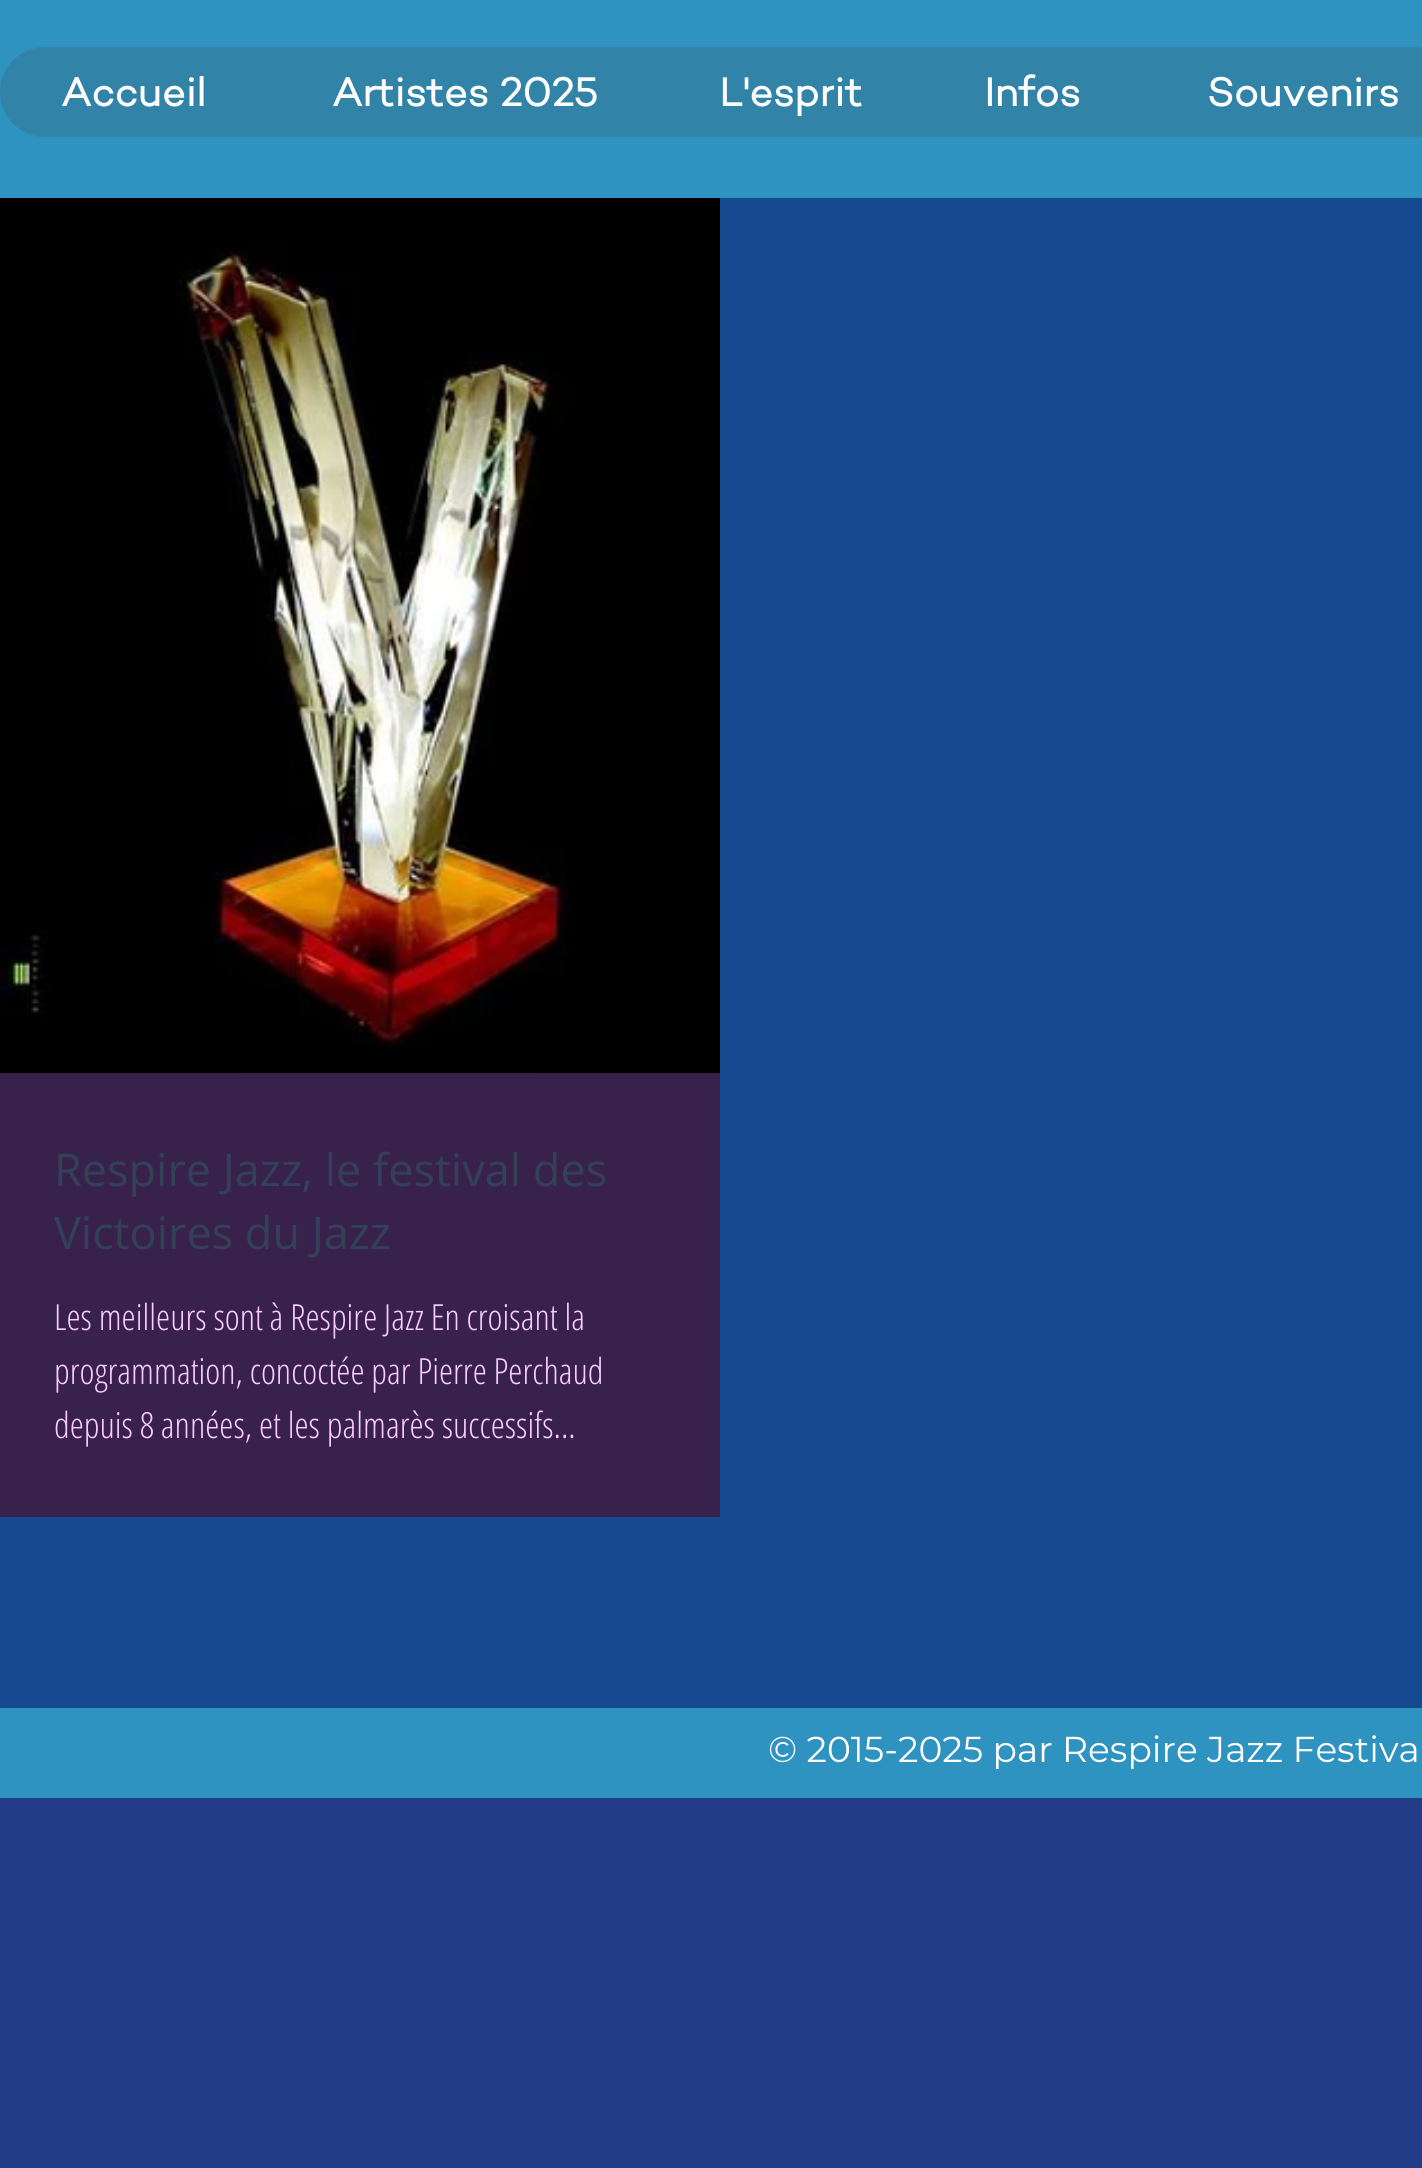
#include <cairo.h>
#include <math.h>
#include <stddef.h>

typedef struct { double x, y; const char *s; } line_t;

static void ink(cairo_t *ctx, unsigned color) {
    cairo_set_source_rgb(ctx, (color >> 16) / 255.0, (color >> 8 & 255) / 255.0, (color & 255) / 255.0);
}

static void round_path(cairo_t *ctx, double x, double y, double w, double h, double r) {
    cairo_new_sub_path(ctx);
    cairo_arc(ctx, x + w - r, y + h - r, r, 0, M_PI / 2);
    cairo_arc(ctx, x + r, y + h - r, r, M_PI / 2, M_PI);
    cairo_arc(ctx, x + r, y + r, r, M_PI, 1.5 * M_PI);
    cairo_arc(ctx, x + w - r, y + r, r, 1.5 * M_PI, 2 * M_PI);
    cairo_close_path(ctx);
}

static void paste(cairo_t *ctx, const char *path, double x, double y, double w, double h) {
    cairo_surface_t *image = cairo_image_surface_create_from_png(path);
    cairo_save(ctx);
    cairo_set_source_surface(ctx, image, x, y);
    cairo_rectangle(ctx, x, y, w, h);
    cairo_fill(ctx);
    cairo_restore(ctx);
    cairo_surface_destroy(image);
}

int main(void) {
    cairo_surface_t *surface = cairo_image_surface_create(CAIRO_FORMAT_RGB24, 1422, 2168);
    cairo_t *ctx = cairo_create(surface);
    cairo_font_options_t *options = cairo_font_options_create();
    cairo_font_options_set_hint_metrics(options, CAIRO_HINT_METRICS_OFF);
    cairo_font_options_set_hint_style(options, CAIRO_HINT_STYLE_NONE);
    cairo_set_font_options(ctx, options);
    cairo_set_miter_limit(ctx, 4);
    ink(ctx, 0x223C87);
    cairo_paint(ctx);
    ink(ctx, 0x2E93C1);
    cairo_rectangle(ctx, 0, 0, 1422, 198);
    cairo_fill(ctx);
    ink(ctx, 0x3183A8);
    round_path(ctx, 0, 47, 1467, 90, 45);
    cairo_fill(ctx);
    cairo_select_font_face(ctx, "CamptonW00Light", CAIRO_FONT_SLANT_NORMAL, CAIRO_FONT_WEIGHT_BOLD);
    cairo_set_font_size(ctx, 40.5);
    ink(ctx, 0xFFFFFF);
    {
        static const line_t items[] = {
            {61, 106, "Accueil"},
            {332, 106, "Artistes 2025"},
            {719, 106, "L'esprit"},
            {984, 106, "Infos"},
            {1207, 106, "Souvenirs"},
        };
        for (size_t i = 0; i < sizeof items / sizeof *items; i++) {
            cairo_move_to(ctx, items[i].x, items[i].y);
            cairo_show_text(ctx, items[i].s);
        }
    }
    ink(ctx, 0x154A90);
    cairo_rectangle(ctx, 0, 198, 1422, 1510);
    cairo_fill(ctx);
    paste(ctx, "media/1.png", 0, 198, 720, 875);
    paste(ctx, "media/2.png", 0, 1073, 720, 1);
    cairo_set_source_rgba(ctx, 0.247, 0.102, 0.251, 0.85);
    cairo_rectangle(ctx, 0, 1073, 720, 444);
    cairo_fill(ctx);
    cairo_select_font_face(ctx, "Open Sans", CAIRO_FONT_SLANT_NORMAL, CAIRO_FONT_WEIGHT_NORMAL);
    cairo_set_font_size(ctx, 45);
    ink(ctx, 0x324158);
    cairo_move_to(ctx, 54, 1186);
    cairo_show_text(ctx, "Respire Jazz, le festival des");
    cairo_move_to(ctx, 54, 1249);
    cairo_show_text(ctx, "Victoires du Jazz");
    cairo_select_font_face(ctx, "Open Sans Condensed Light", CAIRO_FONT_SLANT_NORMAL, CAIRO_FONT_WEIGHT_NORMAL);
    cairo_set_font_size(ctx, 36);
    ink(ctx, 0xFDCCFF);
    {
        static const line_t items[] = {
            {54, 1330, "Les meilleurs sont à Respire Jazz En croisant la"},
            {54, 1384, "programmation, concoctée par Pierre Perchaud"},
            {54, 1438, "depuis 8 années, et les palmarès successifs..."},
        };
        for (size_t i = 0; i < sizeof items / sizeof *items; i++) {
            cairo_move_to(ctx, items[i].x, items[i].y);
            cairo_show_text(ctx, items[i].s);
        }
    }
    ink(ctx, 0x2E93C1);
    cairo_rectangle(ctx, 0, 1708, 1422, 90);
    cairo_fill(ctx);
    cairo_select_font_face(ctx, "Montserrat", CAIRO_FONT_SLANT_NORMAL, CAIRO_FONT_WEIGHT_NORMAL);
    ink(ctx, 0xFFFFFF);
    cairo_move_to(ctx, 768, 1762);
    cairo_show_text(ctx, "© 2015-2025 par Respire Jazz Festiva");
    cairo_surface_write_to_png(surface, "image.png");
    cairo_font_options_destroy(options);
    cairo_destroy(ctx);
    cairo_surface_destroy(surface);
    return 0;
}
